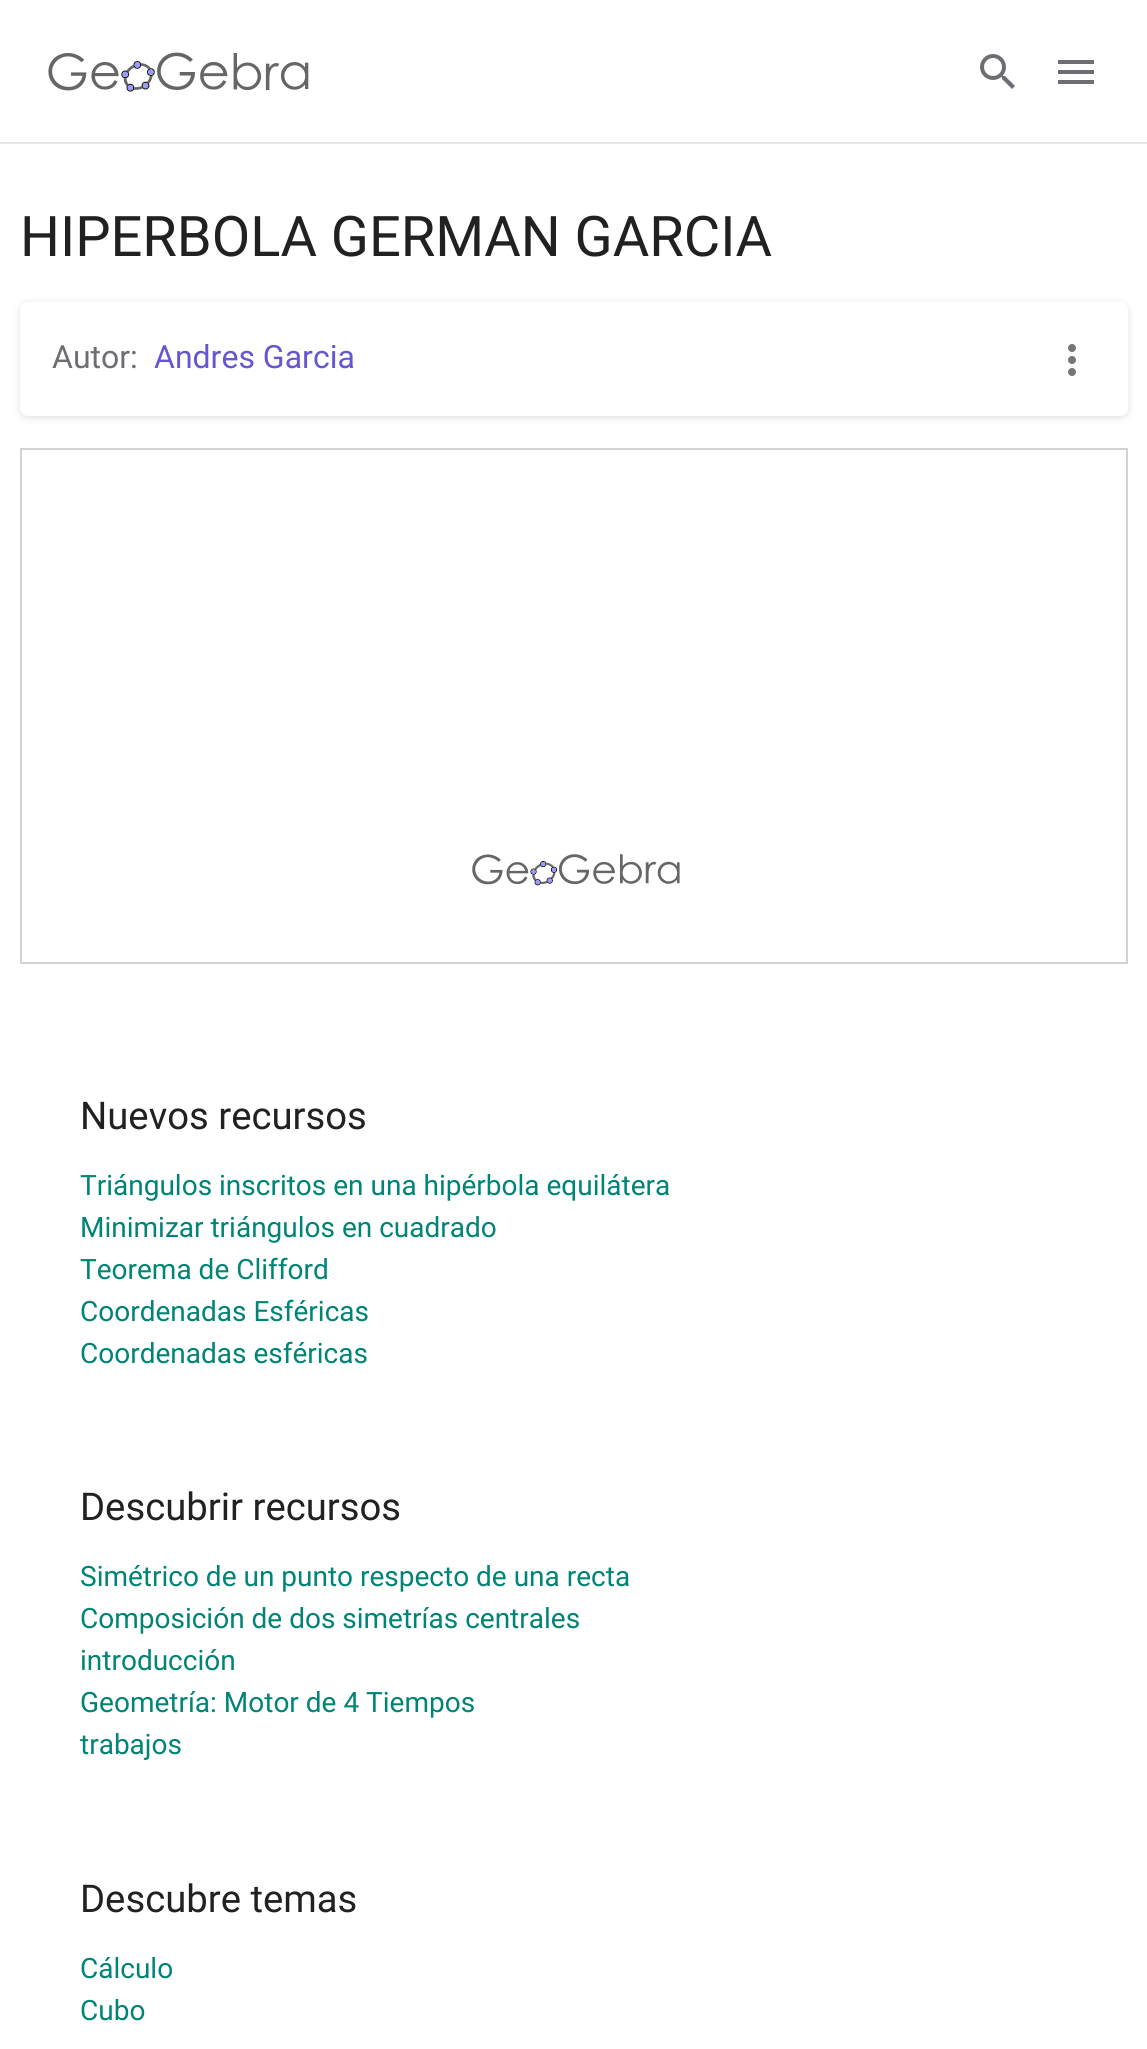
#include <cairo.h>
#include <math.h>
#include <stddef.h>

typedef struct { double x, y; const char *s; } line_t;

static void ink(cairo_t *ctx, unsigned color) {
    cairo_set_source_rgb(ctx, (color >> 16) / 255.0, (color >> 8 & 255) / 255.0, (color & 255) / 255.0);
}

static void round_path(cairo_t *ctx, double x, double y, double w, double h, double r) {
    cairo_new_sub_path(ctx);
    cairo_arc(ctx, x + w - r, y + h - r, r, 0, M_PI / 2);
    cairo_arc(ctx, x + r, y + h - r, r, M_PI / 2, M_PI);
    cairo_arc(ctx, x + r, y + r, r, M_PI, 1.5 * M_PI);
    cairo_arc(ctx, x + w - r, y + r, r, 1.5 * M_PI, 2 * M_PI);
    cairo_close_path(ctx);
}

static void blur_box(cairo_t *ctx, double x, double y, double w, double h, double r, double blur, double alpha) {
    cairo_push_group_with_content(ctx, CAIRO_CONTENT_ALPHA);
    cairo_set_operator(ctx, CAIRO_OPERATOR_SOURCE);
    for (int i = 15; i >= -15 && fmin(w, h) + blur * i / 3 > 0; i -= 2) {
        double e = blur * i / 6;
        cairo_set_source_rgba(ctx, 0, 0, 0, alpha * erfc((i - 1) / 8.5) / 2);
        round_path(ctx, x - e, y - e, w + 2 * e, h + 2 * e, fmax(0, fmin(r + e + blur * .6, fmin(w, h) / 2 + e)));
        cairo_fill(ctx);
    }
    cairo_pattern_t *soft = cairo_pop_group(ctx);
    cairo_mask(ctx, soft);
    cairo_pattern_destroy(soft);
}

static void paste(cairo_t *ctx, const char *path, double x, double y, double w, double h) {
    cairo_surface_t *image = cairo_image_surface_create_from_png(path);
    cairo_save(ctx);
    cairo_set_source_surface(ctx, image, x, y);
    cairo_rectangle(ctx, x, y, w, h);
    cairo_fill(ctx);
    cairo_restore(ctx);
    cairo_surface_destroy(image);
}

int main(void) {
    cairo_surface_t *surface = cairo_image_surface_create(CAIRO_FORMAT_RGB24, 1147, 2049);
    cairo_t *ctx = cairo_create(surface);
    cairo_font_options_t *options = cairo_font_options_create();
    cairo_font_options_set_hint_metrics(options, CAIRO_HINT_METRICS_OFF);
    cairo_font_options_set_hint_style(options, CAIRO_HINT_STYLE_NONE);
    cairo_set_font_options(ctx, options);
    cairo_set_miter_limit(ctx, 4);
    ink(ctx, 0xFFFFFF);
    cairo_paint(ctx);
    ink(ctx, 0xE6E6EB);
    cairo_rectangle(ctx, 0, 142, 1147, 2);
    cairo_fill(ctx);
    paste(ctx, "media/1.png", 48, 52, 261, 40);
    paste(ctx, "media/2.png", 980, 54, 35, 35);
    paste(ctx, "media/3.png", 1058, 60, 36, 24);
    cairo_select_font_face(ctx, "Roboto", CAIRO_FONT_SLANT_NORMAL, CAIRO_FONT_WEIGHT_NORMAL);
    cairo_set_font_size(ctx, 56);
    ink(ctx, 0x212121);
    cairo_move_to(ctx, 20, 256);
    cairo_show_text(ctx, "HIPERBOLA GERMAN GARCIA");
    ink(ctx, 0x1C1C1F);
    blur_box(ctx, 20, 304, 1108, 114, 8, 4, 0.14);
    ink(ctx, 0xFFFFFF);
    round_path(ctx, 20, 302, 1108, 114, 8);
    cairo_fill(ctx);
    cairo_set_font_size(ctx, 32);
    ink(ctx, 0x6E6D73);
    cairo_move_to(ctx, 52, 368);
    cairo_show_text(ctx, "Autor:");
    ink(ctx, 0x6557D2);
    cairo_move_to(ctx, 154, 368);
    cairo_show_text(ctx, "Andres Garcia");
    paste(ctx, "media/4.png", 1068, 344, 8, 32);
    paste(ctx, "media/5.png", 472, 854, 208, 32);
    cairo_rectangle(ctx, 21, 449, 1106, 514);
    ink(ctx, 0xD3D3D3);
    cairo_stroke(ctx);
    cairo_set_font_size(ctx, 38.25);
    ink(ctx, 0x212121);
    cairo_move_to(ctx, 80, 1129);
    cairo_show_text(ctx, "Nuevos recursos");
    cairo_set_font_size(ctx, 28);
    ink(ctx, 0x008475);
    {
        static const line_t items[] = {
            {80, 1195, "Triángulos inscritos en una hipérbola equilátera"},
            {80, 1237, "Minimizar triángulos en cuadrado"},
            {80, 1279, "Teorema de Clifford"},
            {80, 1321, "Coordenadas Esféricas"},
            {80, 1363, "Coordenadas esféricas"},
        };
        for (size_t i = 0; i < sizeof items / sizeof *items; i++) {
            cairo_move_to(ctx, items[i].x, items[i].y);
            cairo_show_text(ctx, items[i].s);
        }
    }
    cairo_set_font_size(ctx, 38.25);
    ink(ctx, 0x212121);
    cairo_move_to(ctx, 80, 1520);
    cairo_show_text(ctx, "Descubrir recursos");
    cairo_set_font_size(ctx, 28);
    ink(ctx, 0x008475);
    {
        static const line_t items[] = {
            {80, 1586, "Simétrico de un punto respecto de una recta"},
            {80, 1628, "Composición de dos simetrías centrales"},
            {80, 1670, "introducción"},
            {80, 1712, "Geometría: Motor de 4 Tiempos"},
            {80, 1754, "trabajos"},
        };
        for (size_t i = 0; i < sizeof items / sizeof *items; i++) {
            cairo_move_to(ctx, items[i].x, items[i].y);
            cairo_show_text(ctx, items[i].s);
        }
    }
    cairo_set_font_size(ctx, 38.25);
    ink(ctx, 0x212121);
    cairo_move_to(ctx, 80, 1912);
    cairo_show_text(ctx, "Descubre temas");
    cairo_set_font_size(ctx, 28);
    ink(ctx, 0x008475);
    cairo_move_to(ctx, 80, 1978);
    cairo_show_text(ctx, "Cálculo");
    cairo_move_to(ctx, 80, 2020);
    cairo_show_text(ctx, "Cubo");
    cairo_surface_write_to_png(surface, "image.png");
    cairo_font_options_destroy(options);
    cairo_destroy(ctx);
    cairo_surface_destroy(surface);
    return 0;
}
